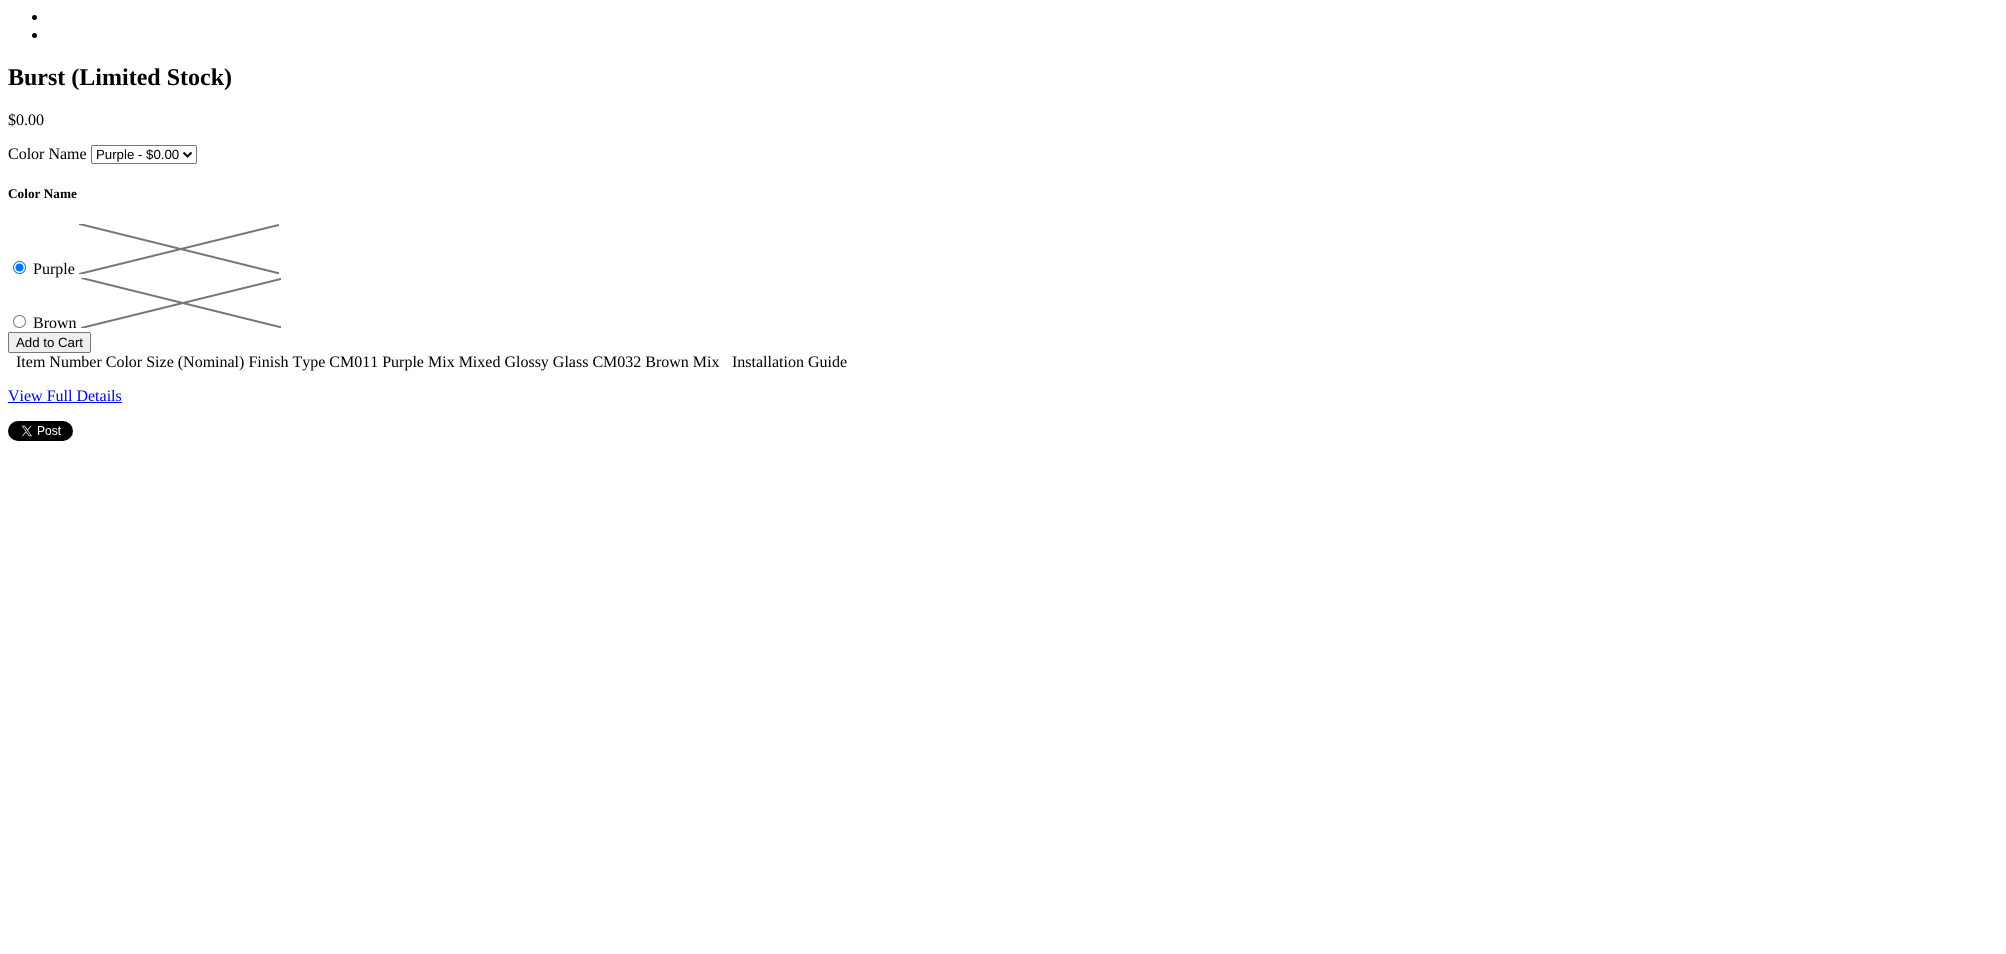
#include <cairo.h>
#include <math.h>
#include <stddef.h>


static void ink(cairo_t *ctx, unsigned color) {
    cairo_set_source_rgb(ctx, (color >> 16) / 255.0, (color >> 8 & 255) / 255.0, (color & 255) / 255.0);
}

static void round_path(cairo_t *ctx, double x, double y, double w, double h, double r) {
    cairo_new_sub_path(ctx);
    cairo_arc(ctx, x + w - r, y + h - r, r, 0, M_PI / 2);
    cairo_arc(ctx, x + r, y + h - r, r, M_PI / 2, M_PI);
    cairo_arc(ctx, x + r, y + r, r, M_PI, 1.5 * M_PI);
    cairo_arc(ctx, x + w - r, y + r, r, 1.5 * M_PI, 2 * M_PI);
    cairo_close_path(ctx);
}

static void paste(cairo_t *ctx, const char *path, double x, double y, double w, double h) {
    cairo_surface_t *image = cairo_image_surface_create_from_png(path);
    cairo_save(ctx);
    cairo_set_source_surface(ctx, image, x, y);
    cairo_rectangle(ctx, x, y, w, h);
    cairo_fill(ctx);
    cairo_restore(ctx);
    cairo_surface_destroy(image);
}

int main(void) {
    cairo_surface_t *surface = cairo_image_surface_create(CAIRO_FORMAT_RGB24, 2006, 954);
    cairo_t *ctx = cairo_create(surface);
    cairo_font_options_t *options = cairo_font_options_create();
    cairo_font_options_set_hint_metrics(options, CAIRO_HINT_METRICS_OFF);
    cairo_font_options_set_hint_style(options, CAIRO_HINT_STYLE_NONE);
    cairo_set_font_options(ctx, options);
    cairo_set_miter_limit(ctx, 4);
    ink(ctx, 0xFFFFFF);
    cairo_paint(ctx);
    ink(ctx, 0x000000);
    cairo_arc(ctx, 34.5, 17.5, 2.5, 0, 2 * M_PI);
    cairo_fill(ctx);
    cairo_arc(ctx, 34.5, 35.5, 2.5, 0, 2 * M_PI);
    cairo_fill(ctx);
    cairo_select_font_face(ctx, "Liberation Serif", CAIRO_FONT_SLANT_NORMAL, CAIRO_FONT_WEIGHT_BOLD);
    cairo_set_font_size(ctx, 24);
    cairo_move_to(ctx, 8, 85);
    cairo_show_text(ctx, "Burst (Limited Stock)");
    cairo_select_font_face(ctx, "Liberation Serif", CAIRO_FONT_SLANT_NORMAL, CAIRO_FONT_WEIGHT_NORMAL);
    cairo_set_font_size(ctx, 16);
    cairo_move_to(ctx, 8, 125);
    cairo_show_text(ctx, "$0.00");
    cairo_move_to(ctx, 8, 159);
    cairo_show_text(ctx, "Color Name");
    round_path(ctx, 91.5, 145.5, 105, 18, 1.5);
    ink(ctx, 0x767676);
    cairo_set_line_width(ctx, 1);
    cairo_stroke(ctx);
    cairo_new_path(ctx);
    cairo_move_to(ctx, 183.5, 152.5);
    cairo_line_to(ctx, 187.5, 156.5);
    cairo_line_to(ctx, 191.5, 152.5);
    ink(ctx, 0x000000);
    cairo_set_line_width(ctx, 2);
    cairo_stroke(ctx);
    cairo_select_font_face(ctx, "Liberation Sans", CAIRO_FONT_SLANT_NORMAL, CAIRO_FONT_WEIGHT_NORMAL);
    cairo_set_font_size(ctx, 13.25);
    cairo_move_to(ctx, 96, 159);
    cairo_show_text(ctx, "Purple - $0.00");
    cairo_select_font_face(ctx, "Liberation Serif", CAIRO_FONT_SLANT_NORMAL, CAIRO_FONT_WEIGHT_BOLD);
    cairo_move_to(ctx, 8, 198);
    cairo_show_text(ctx, "Color Name");
    cairo_new_path(ctx);
    cairo_arc(ctx, 19.5, 267.5, 6, 0, 2 * M_PI);
    ink(ctx, 0x0075FF);
    cairo_set_line_width(ctx, 1);
    cairo_stroke(ctx);
    cairo_arc(ctx, 19.5, 267.5, 4, 0, 2 * M_PI);
    cairo_fill(ctx);
    cairo_select_font_face(ctx, "Liberation Serif", CAIRO_FONT_SLANT_NORMAL, CAIRO_FONT_WEIGHT_NORMAL);
    cairo_set_font_size(ctx, 16);
    ink(ctx, 0x000000);
    cairo_move_to(ctx, 33, 274);
    cairo_show_text(ctx, "Purple");
    paste(ctx, "media/1.png", 79, 224, 200, 50);
    cairo_arc(ctx, 19.5, 321.5, 6, 0, 2 * M_PI);
    ink(ctx, 0x767676);
    cairo_stroke(ctx);
    ink(ctx, 0x000000);
    cairo_move_to(ctx, 33, 328);
    cairo_show_text(ctx, "Brown");
    paste(ctx, "media/1.png", 81, 278, 200, 50);
    ink(ctx, 0xEFEFEF);
    round_path(ctx, 8.5, 332.5, 82, 20, 1.5);
    cairo_fill_preserve(ctx);
    ink(ctx, 0x767676);
    cairo_stroke(ctx);
    cairo_select_font_face(ctx, "Liberation Sans", CAIRO_FONT_SLANT_NORMAL, CAIRO_FONT_WEIGHT_NORMAL);
    cairo_set_font_size(ctx, 13.25);
    ink(ctx, 0x000000);
    cairo_move_to(ctx, 16, 347);
    cairo_show_text(ctx, "Add to Cart");
    cairo_select_font_face(ctx, "Liberation Serif", CAIRO_FONT_SLANT_NORMAL, CAIRO_FONT_WEIGHT_NORMAL);
    cairo_set_font_size(ctx, 16);
    cairo_move_to(ctx, 16, 367);
    cairo_show_text(ctx, "Item Number Color Size (Nominal) Finish Type CM011 Purple Mix Mixed Glossy Glass CM032 Brown Mix");
    cairo_move_to(ctx, 732, 367);
    cairo_show_text(ctx, "Installation Guide");
    ink(ctx, 0x0000EE);
    cairo_move_to(ctx, 8, 401);
    cairo_show_text(ctx, "View Full Details");
    cairo_rectangle(ctx, 8, 402, 114, 1);
    cairo_fill(ctx);
    paste(ctx, "media/2.png", 8, 421, 65, 20);
    cairo_surface_write_to_png(surface, "image.png");
    cairo_font_options_destroy(options);
    cairo_destroy(ctx);
    cairo_surface_destroy(surface);
    return 0;
}
